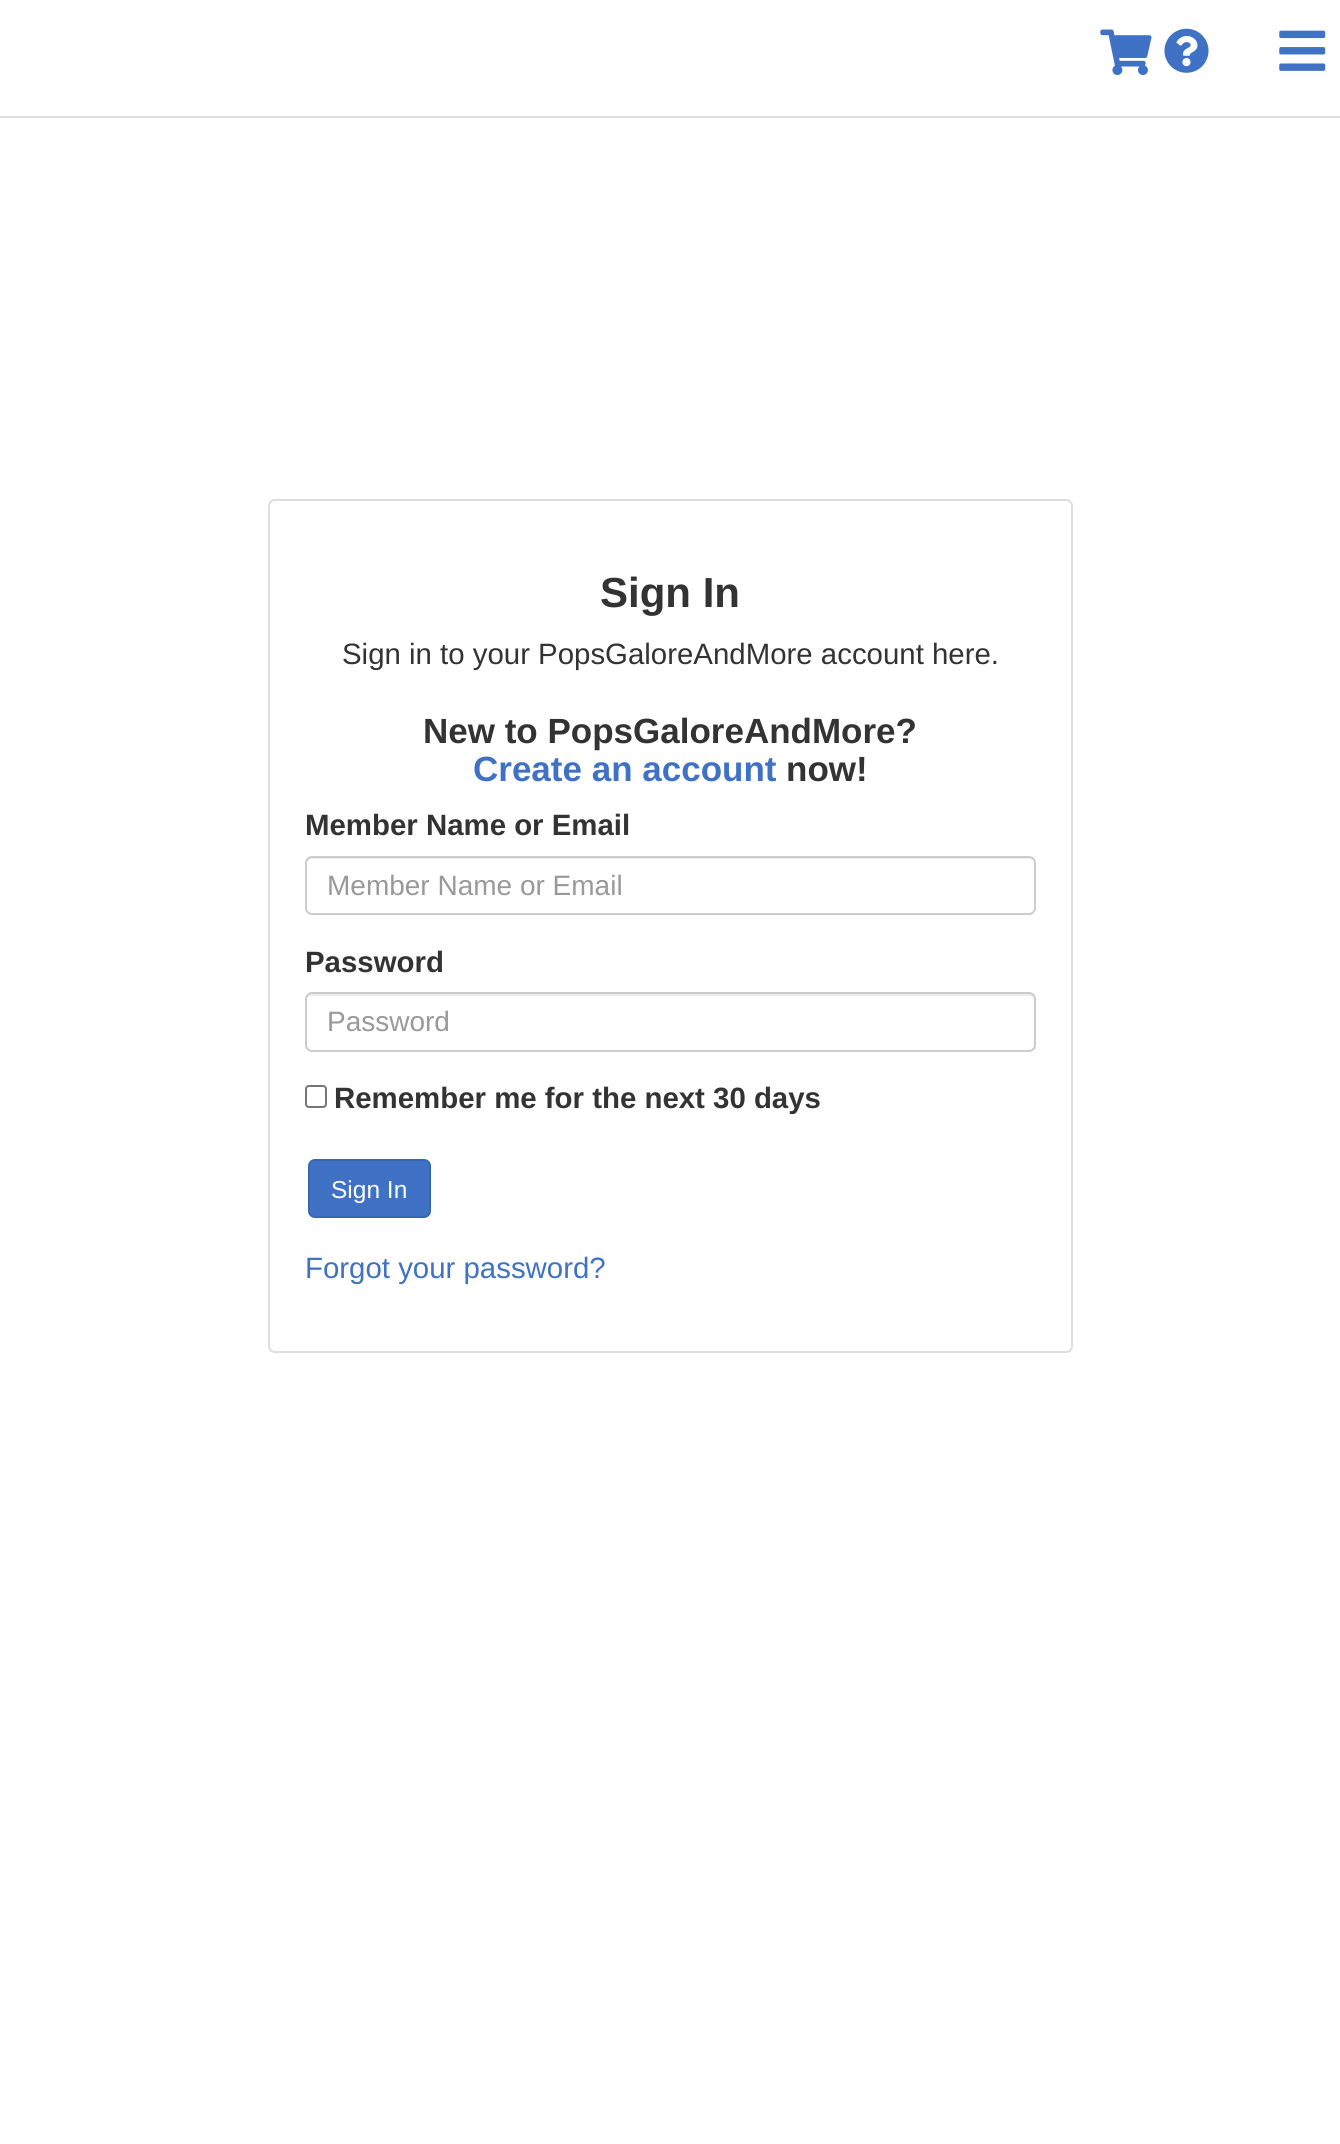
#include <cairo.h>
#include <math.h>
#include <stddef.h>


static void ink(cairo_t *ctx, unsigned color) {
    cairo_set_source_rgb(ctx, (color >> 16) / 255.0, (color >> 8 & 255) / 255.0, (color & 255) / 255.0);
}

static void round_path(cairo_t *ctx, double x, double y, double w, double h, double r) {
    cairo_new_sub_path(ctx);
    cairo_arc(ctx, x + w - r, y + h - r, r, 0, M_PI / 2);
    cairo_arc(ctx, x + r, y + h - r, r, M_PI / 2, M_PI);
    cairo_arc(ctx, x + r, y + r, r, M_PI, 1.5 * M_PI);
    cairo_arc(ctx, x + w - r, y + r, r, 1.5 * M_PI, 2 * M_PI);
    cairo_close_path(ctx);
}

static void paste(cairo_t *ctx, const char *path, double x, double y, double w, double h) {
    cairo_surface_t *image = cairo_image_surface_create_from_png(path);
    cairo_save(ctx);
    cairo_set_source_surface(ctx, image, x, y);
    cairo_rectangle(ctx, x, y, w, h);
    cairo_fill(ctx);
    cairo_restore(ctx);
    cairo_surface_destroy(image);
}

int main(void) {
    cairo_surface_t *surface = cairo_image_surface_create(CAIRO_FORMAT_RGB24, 1340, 2144);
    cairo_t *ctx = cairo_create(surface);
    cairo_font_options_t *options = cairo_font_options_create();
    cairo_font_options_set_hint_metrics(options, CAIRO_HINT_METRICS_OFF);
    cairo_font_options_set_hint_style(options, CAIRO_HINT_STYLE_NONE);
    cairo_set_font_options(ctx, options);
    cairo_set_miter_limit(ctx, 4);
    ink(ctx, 0xFFFFFF);
    cairo_paint(ctx);
    paste(ctx, "media/1.png", 1100, 29, 52, 46);
    paste(ctx, "media/2.png", 1164, 28, 45, 45);
    paste(ctx, "media/3.png", 1279, 30, 47, 41);
    ink(ctx, 0xDDDDDD);
    cairo_rectangle(ctx, 0, 116, 1340, 2);
    cairo_fill(ctx);
    round_path(ctx, 269, 500, 803, 852, 6);
    cairo_stroke(ctx);
    cairo_select_font_face(ctx, "Liberation Sans", CAIRO_FONT_SLANT_NORMAL, CAIRO_FONT_WEIGHT_BOLD);
    cairo_set_font_size(ctx, 42);
    ink(ctx, 0x333333);
    cairo_move_to(ctx, 600, 607);
    cairo_show_text(ctx, "Sign In");
    cairo_select_font_face(ctx, "Liberation Sans", CAIRO_FONT_SLANT_NORMAL, CAIRO_FONT_WEIGHT_NORMAL);
    cairo_set_font_size(ctx, 29.4);
    cairo_move_to(ctx, 342, 664);
    cairo_show_text(ctx, "Sign in to your PopsGaloreAndMore account here.");
    cairo_select_font_face(ctx, "Liberation Sans", CAIRO_FONT_SLANT_NORMAL, CAIRO_FONT_WEIGHT_BOLD);
    cairo_set_font_size(ctx, 35);
    cairo_move_to(ctx, 423, 743);
    cairo_show_text(ctx, "New to PopsGaloreAndMore?");
    ink(ctx, 0x3F72C5);
    cairo_move_to(ctx, 473, 781);
    cairo_show_text(ctx, "Create an account");
    ink(ctx, 0x333333);
    cairo_move_to(ctx, 786, 781);
    cairo_show_text(ctx, "now!");
    cairo_set_font_size(ctx, 29.4);
    cairo_move_to(ctx, 305, 835);
    cairo_show_text(ctx, "Member Name or Email");
    ink(ctx, 0xECECEC);
    cairo_new_path(ctx);
    cairo_move_to(ctx, 312, 859);
    cairo_line_to(ctx, 1029, 859);
    cairo_curve_to(ctx, 1032, 859, 1034, 862, 1034, 864);
    cairo_curve_to(ctx, 1034, 861, 1032, 858, 1029, 858);
    cairo_line_to(ctx, 311, 858);
    cairo_curve_to(ctx, 308, 858, 306, 861, 306, 864);
    cairo_curve_to(ctx, 306, 862, 309, 859, 312, 859);
    cairo_close_path(ctx);
    cairo_fill(ctx);
    round_path(ctx, 306, 857, 729, 57, 6);
    ink(ctx, 0xCCCCCC);
    cairo_stroke(ctx);
    cairo_select_font_face(ctx, "Liberation Sans", CAIRO_FONT_SLANT_NORMAL, CAIRO_FONT_WEIGHT_NORMAL);
    cairo_set_font_size(ctx, 28);
    ink(ctx, 0x999999);
    cairo_move_to(ctx, 327, 895);
    cairo_show_text(ctx, "Member Name or Email");
    cairo_select_font_face(ctx, "Liberation Sans", CAIRO_FONT_SLANT_NORMAL, CAIRO_FONT_WEIGHT_BOLD);
    cairo_set_font_size(ctx, 29.4);
    ink(ctx, 0x333333);
    cairo_move_to(ctx, 305, 972);
    cairo_show_text(ctx, "Password");
    ink(ctx, 0xECECEC);
    cairo_new_path(ctx);
    cairo_move_to(ctx, 312, 996);
    cairo_line_to(ctx, 1029, 996);
    cairo_curve_to(ctx, 1032, 996, 1034, 998, 1034, 1001);
    cairo_line_to(ctx, 1034, 999);
    cairo_curve_to(ctx, 1034, 996, 1032, 994, 1029, 994);
    cairo_line_to(ctx, 311, 994);
    cairo_curve_to(ctx, 308, 994, 306, 996, 306, 999);
    cairo_line_to(ctx, 306, 1001);
    cairo_curve_to(ctx, 306, 998, 309, 996, 312, 996);
    cairo_close_path(ctx);
    cairo_fill(ctx);
    round_path(ctx, 306, 993, 729, 58, 6);
    ink(ctx, 0xCCCCCC);
    cairo_stroke(ctx);
    cairo_select_font_face(ctx, "Liberation Sans", CAIRO_FONT_SLANT_NORMAL, CAIRO_FONT_WEIGHT_NORMAL);
    cairo_set_font_size(ctx, 28);
    ink(ctx, 0x999999);
    cairo_move_to(ctx, 327, 1031);
    cairo_show_text(ctx, "Password");
    round_path(ctx, 306, 1086, 20, 21, 3);
    ink(ctx, 0x767676);
    cairo_stroke(ctx);
    cairo_select_font_face(ctx, "Liberation Sans", CAIRO_FONT_SLANT_NORMAL, CAIRO_FONT_WEIGHT_BOLD);
    cairo_set_font_size(ctx, 29.4);
    ink(ctx, 0x333333);
    cairo_move_to(ctx, 334, 1108);
    cairo_show_text(ctx, "Remember me for the next 30 days");
    ink(ctx, 0x3F72C5);
    round_path(ctx, 309, 1160, 121, 57, 6);
    cairo_fill_preserve(ctx);
    ink(ctx, 0x3666B4);
    cairo_stroke(ctx);
    cairo_select_font_face(ctx, "Liberation Sans", CAIRO_FONT_SLANT_NORMAL, CAIRO_FONT_WEIGHT_NORMAL);
    cairo_set_font_size(ctx, 24.5);
    ink(ctx, 0xFFFFFF);
    cairo_move_to(ctx, 331, 1198);
    cairo_show_text(ctx, "Sign In");
    cairo_set_font_size(ctx, 29.4);
    ink(ctx, 0x3F72C5);
    cairo_move_to(ctx, 305, 1278);
    cairo_show_text(ctx, "Forgot your password?");
    cairo_surface_write_to_png(surface, "image.png");
    cairo_font_options_destroy(options);
    cairo_destroy(ctx);
    cairo_surface_destroy(surface);
    return 0;
}
